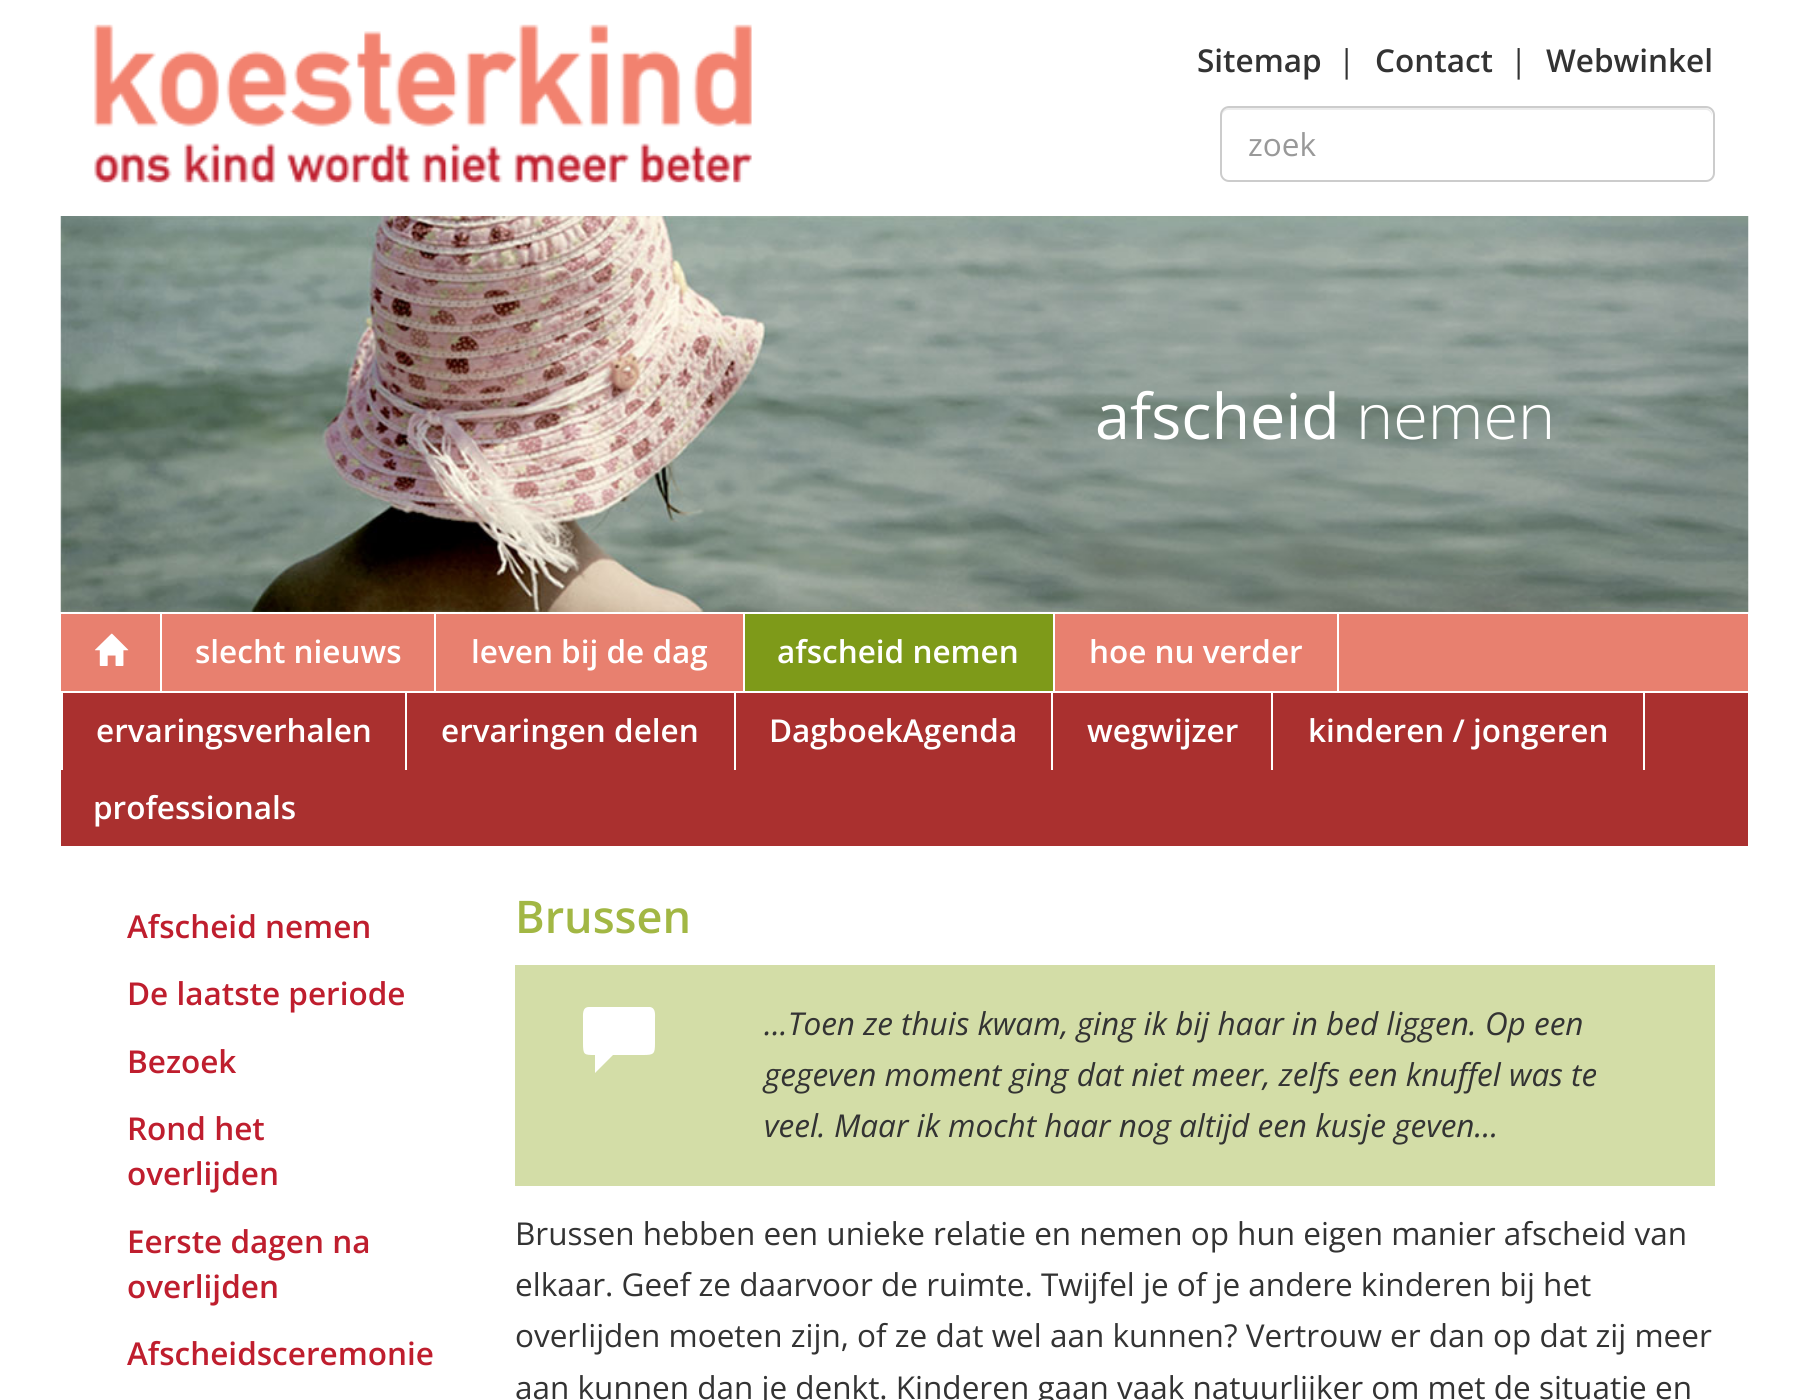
#include <cairo.h>
#include <math.h>
#include <stddef.h>

typedef struct { double x, y; const char *s; } line_t;
typedef struct { double x, y, w, h; unsigned color; } box_t;

static void ink(cairo_t *ctx, unsigned color) {
    cairo_set_source_rgb(ctx, (color >> 16) / 255.0, (color >> 8 & 255) / 255.0, (color & 255) / 255.0);
}

static void round_path(cairo_t *ctx, double x, double y, double w, double h, double r) {
    cairo_new_sub_path(ctx);
    cairo_arc(ctx, x + w - r, y + h - r, r, 0, M_PI / 2);
    cairo_arc(ctx, x + r, y + h - r, r, M_PI / 2, M_PI);
    cairo_arc(ctx, x + r, y + r, r, M_PI, 1.5 * M_PI);
    cairo_arc(ctx, x + w - r, y + r, r, 1.5 * M_PI, 2 * M_PI);
    cairo_close_path(ctx);
}

static void paste(cairo_t *ctx, const char *path, double x, double y, double w, double h) {
    cairo_surface_t *image = cairo_image_surface_create_from_png(path);
    cairo_save(ctx);
    cairo_set_source_surface(ctx, image, x, y);
    cairo_rectangle(ctx, x, y, w, h);
    cairo_fill(ctx);
    cairo_restore(ctx);
    cairo_surface_destroy(image);
}

int main(void) {
    cairo_surface_t *surface = cairo_image_surface_create(CAIRO_FORMAT_RGB24, 1805, 1400);
    cairo_t *ctx = cairo_create(surface);
    cairo_font_options_t *options = cairo_font_options_create();
    cairo_font_options_set_hint_metrics(options, CAIRO_HINT_METRICS_OFF);
    cairo_font_options_set_hint_style(options, CAIRO_HINT_STYLE_NONE);
    cairo_set_font_options(ctx, options);
    cairo_set_miter_limit(ctx, 4);
    ink(ctx, 0xFFFFFF);
    cairo_paint(ctx);
    paste(ctx, "media/1.png", 94, 24, 658, 159);
    cairo_select_font_face(ctx, "Open Sans SemiBold", CAIRO_FONT_SLANT_NORMAL, CAIRO_FONT_WEIGHT_NORMAL);
    cairo_set_font_size(ctx, 31.5);
    ink(ctx, 0x333333);
    cairo_move_to(ctx, 1197, 72);
    cairo_show_text(ctx, "Sitemap");
    cairo_select_font_face(ctx, "Open Sans", CAIRO_FONT_SLANT_NORMAL, CAIRO_FONT_WEIGHT_NORMAL);
    cairo_move_to(ctx, 1338, 72);
    cairo_show_text(ctx, "|");
    cairo_select_font_face(ctx, "Open Sans SemiBold", CAIRO_FONT_SLANT_NORMAL, CAIRO_FONT_WEIGHT_NORMAL);
    cairo_move_to(ctx, 1375, 72);
    cairo_show_text(ctx, "Contact");
    cairo_select_font_face(ctx, "Open Sans", CAIRO_FONT_SLANT_NORMAL, CAIRO_FONT_WEIGHT_NORMAL);
    cairo_move_to(ctx, 1510, 72);
    cairo_show_text(ctx, "|");
    cairo_select_font_face(ctx, "Open Sans SemiBold", CAIRO_FONT_SLANT_NORMAL, CAIRO_FONT_WEIGHT_NORMAL);
    cairo_move_to(ctx, 1546, 72);
    cairo_show_text(ctx, "Webwinkel");
    ink(ctx, 0xECECEC);
    cairo_new_path(ctx);
    cairo_move_to(ctx, 1228, 110);
    cairo_line_to(ctx, 1706, 110);
    cairo_curve_to(ctx, 1709, 110, 1712, 113, 1712, 117);
    cairo_line_to(ctx, 1712, 115);
    cairo_curve_to(ctx, 1712, 111, 1709, 108, 1705, 108);
    cairo_line_to(ctx, 1229, 108);
    cairo_curve_to(ctx, 1225, 108, 1222, 111, 1222, 115);
    cairo_line_to(ctx, 1222, 117);
    cairo_curve_to(ctx, 1222, 113, 1225, 110, 1228, 110);
    cairo_close_path(ctx);
    cairo_fill(ctx);
    round_path(ctx, 1221, 107, 493, 74, 8);
    ink(ctx, 0xCCCCCC);
    cairo_stroke(ctx);
    cairo_select_font_face(ctx, "Open Sans", CAIRO_FONT_SLANT_NORMAL, CAIRO_FONT_WEIGHT_NORMAL);
    ink(ctx, 0x999999);
    cairo_move_to(ctx, 1248, 156);
    cairo_show_text(ctx, "zoek");
    paste(ctx, "media/2.png", 60, 216, 1689, 396);
    cairo_set_font_size(ctx, 63);
    ink(ctx, 0xFFFFFF);
    cairo_move_to(ctx, 1095, 439);
    cairo_show_text(ctx, "afscheid");
    cairo_select_font_face(ctx, "Open Sans Light", CAIRO_FONT_SLANT_NORMAL, CAIRO_FONT_WEIGHT_NORMAL);
    cairo_move_to(ctx, 1356, 439);
    cairo_show_text(ctx, "nemen");
    ink(ctx, 0xE8806F);
    cairo_rectangle(ctx, 61, 614, 1687, 77);
    cairo_fill(ctx);
    ink(ctx, 0xFFFFFF);
    cairo_rectangle(ctx, 160, 614, 2, 77);
    cairo_fill(ctx);
    paste(ctx, "media/3.png", 95, 633, 34, 33);
    cairo_rectangle(ctx, 434, 614, 2, 77);
    cairo_fill(ctx);
    cairo_select_font_face(ctx, "Open Sans SemiBold", CAIRO_FONT_SLANT_NORMAL, CAIRO_FONT_WEIGHT_NORMAL);
    cairo_set_font_size(ctx, 31.5);
    cairo_move_to(ctx, 195, 663);
    cairo_show_text(ctx, "slecht nieuws");
    cairo_rectangle(ctx, 743, 614, 2, 77);
    cairo_fill(ctx);
    cairo_move_to(ctx, 471, 663);
    cairo_show_text(ctx, "leven bij de dag");
    ink(ctx, 0x7E9A19);
    cairo_rectangle(ctx, 745, 614, 308, 77);
    cairo_fill(ctx);
    ink(ctx, 0xFFFFFF);
    cairo_rectangle(ctx, 1053, 614, 2, 77);
    cairo_fill(ctx);
    cairo_move_to(ctx, 777, 663);
    cairo_show_text(ctx, "afscheid nemen");
    cairo_rectangle(ctx, 1337, 614, 2, 77);
    cairo_fill(ctx);
    cairo_move_to(ctx, 1089, 663);
    cairo_show_text(ctx, "hoe nu verder");
    {
        static const box_t items[] = {
            {61, 693, 1687, 153, 0xAA302F},
            {405, 693, 2, 77, 0xFFFFFF},
            {61, 693, 2, 77, 0xFFFFFF},
        };
        for (size_t i = 0; i < sizeof items / sizeof *items; i++) {
            ink(ctx, items[i].color);
            cairo_rectangle(ctx, items[i].x, items[i].y, items[i].w, items[i].h);
            cairo_fill(ctx);
        }
    }
    cairo_move_to(ctx, 96, 742);
    cairo_show_text(ctx, "ervaringsverhalen");
    cairo_rectangle(ctx, 734, 693, 2, 77);
    cairo_fill(ctx);
    cairo_move_to(ctx, 441, 742);
    cairo_show_text(ctx, "ervaringen delen");
    cairo_rectangle(ctx, 1051, 693, 2, 77);
    cairo_fill(ctx);
    cairo_move_to(ctx, 769, 742);
    cairo_show_text(ctx, "DagboekAgenda");
    cairo_rectangle(ctx, 1271, 693, 2, 77);
    cairo_fill(ctx);
    cairo_move_to(ctx, 1087, 742);
    cairo_show_text(ctx, "wegwijzer");
    cairo_rectangle(ctx, 1643, 693, 2, 77);
    cairo_fill(ctx);
    cairo_move_to(ctx, 1308, 742);
    cairo_show_text(ctx, "kinderen / jongeren");
    cairo_move_to(ctx, 93, 819);
    cairo_show_text(ctx, "professionals");
    ink(ctx, 0xBF1E2E);
    {
        static const line_t items[] = {
            {127, 938, "Afscheid nemen"},
            {127, 1005, "De laatste periode"},
            {127, 1073, "Bezoek"},
            {127, 1140, "Rond het"},
            {127, 1185, "overlijden"},
            {127, 1253, "Eerste dagen na"},
            {127, 1298, "overlijden"},
            {127, 1365, "Afscheidsceremonie"},
        };
        for (size_t i = 0; i < sizeof items / sizeof *items; i++) {
            cairo_move_to(ctx, items[i].x, items[i].y);
            cairo_show_text(ctx, items[i].s);
        }
    }
    cairo_set_font_size(ctx, 45);
    ink(ctx, 0xA2B744);
    cairo_move_to(ctx, 515, 933);
    cairo_show_text(ctx, "Brussen");
    ink(ctx, 0xD3DDA7);
    cairo_rectangle(ctx, 515, 965, 1200, 221);
    cairo_fill(ctx);
    ink(ctx, 0xFFFFFF);
    cairo_new_path(ctx);
    cairo_move_to(ctx, 589, 1007);
    cairo_line_to(ctx, 650, 1007);
    cairo_curve_to(ctx, 656, 1008, 655, 1015, 655, 1019);
    cairo_line_to(ctx, 655, 1043);
    cairo_curve_to(ctx, 655, 1054, 654, 1055, 643, 1055);
    cairo_line_to(ctx, 613, 1055);
    cairo_line_to(ctx, 595, 1073);
    cairo_line_to(ctx, 595, 1055);
    cairo_curve_to(ctx, 584, 1055, 583, 1055, 583, 1043);
    cairo_line_to(ctx, 583, 1019);
    cairo_curve_to(ctx, 583, 1015, 582, 1007, 589, 1007);
    cairo_close_path(ctx);
    cairo_fill(ctx);
    cairo_select_font_face(ctx, "Open Sans", CAIRO_FONT_SLANT_ITALIC, CAIRO_FONT_WEIGHT_NORMAL);
    cairo_set_font_size(ctx, 31.5);
    ink(ctx, 0x333333);
    {
        static const line_t items[] = {
            {764, 1035, "...Toen ze thuis kwam, ging ik bij haar in bed liggen. Op een"},
            {764, 1086, "gegeven moment ging dat niet meer, zelfs een knuffel was te"},
            {764, 1137, "veel. Maar ik mocht haar nog altijd een kusje geven…"},
        };
        for (size_t i = 0; i < sizeof items / sizeof *items; i++) {
            cairo_move_to(ctx, items[i].x, items[i].y);
            cairo_show_text(ctx, items[i].s);
        }
    }
    cairo_select_font_face(ctx, "Open Sans", CAIRO_FONT_SLANT_NORMAL, CAIRO_FONT_WEIGHT_NORMAL);
    {
        static const line_t items[] = {
            {515, 1245, "Brussen hebben een unieke relatie en nemen op hun eigen manier afscheid van"},
            {515, 1296, "elkaar. Geef ze daarvoor de ruimte. Twijfel je of je andere kinderen bij het"},
            {515, 1347, "overlijden moeten zijn, of ze dat wel aan kunnen? Vertrouw er dan op dat zij meer"},
            {515, 1399, "aan kunnen dan je denkt. Kinderen gaan vaak natuurlijker om met de situatie en"},
        };
        for (size_t i = 0; i < sizeof items / sizeof *items; i++) {
            cairo_move_to(ctx, items[i].x, items[i].y);
            cairo_show_text(ctx, items[i].s);
        }
    }
    cairo_surface_write_to_png(surface, "image.png");
    cairo_font_options_destroy(options);
    cairo_destroy(ctx);
    cairo_surface_destroy(surface);
    return 0;
}
